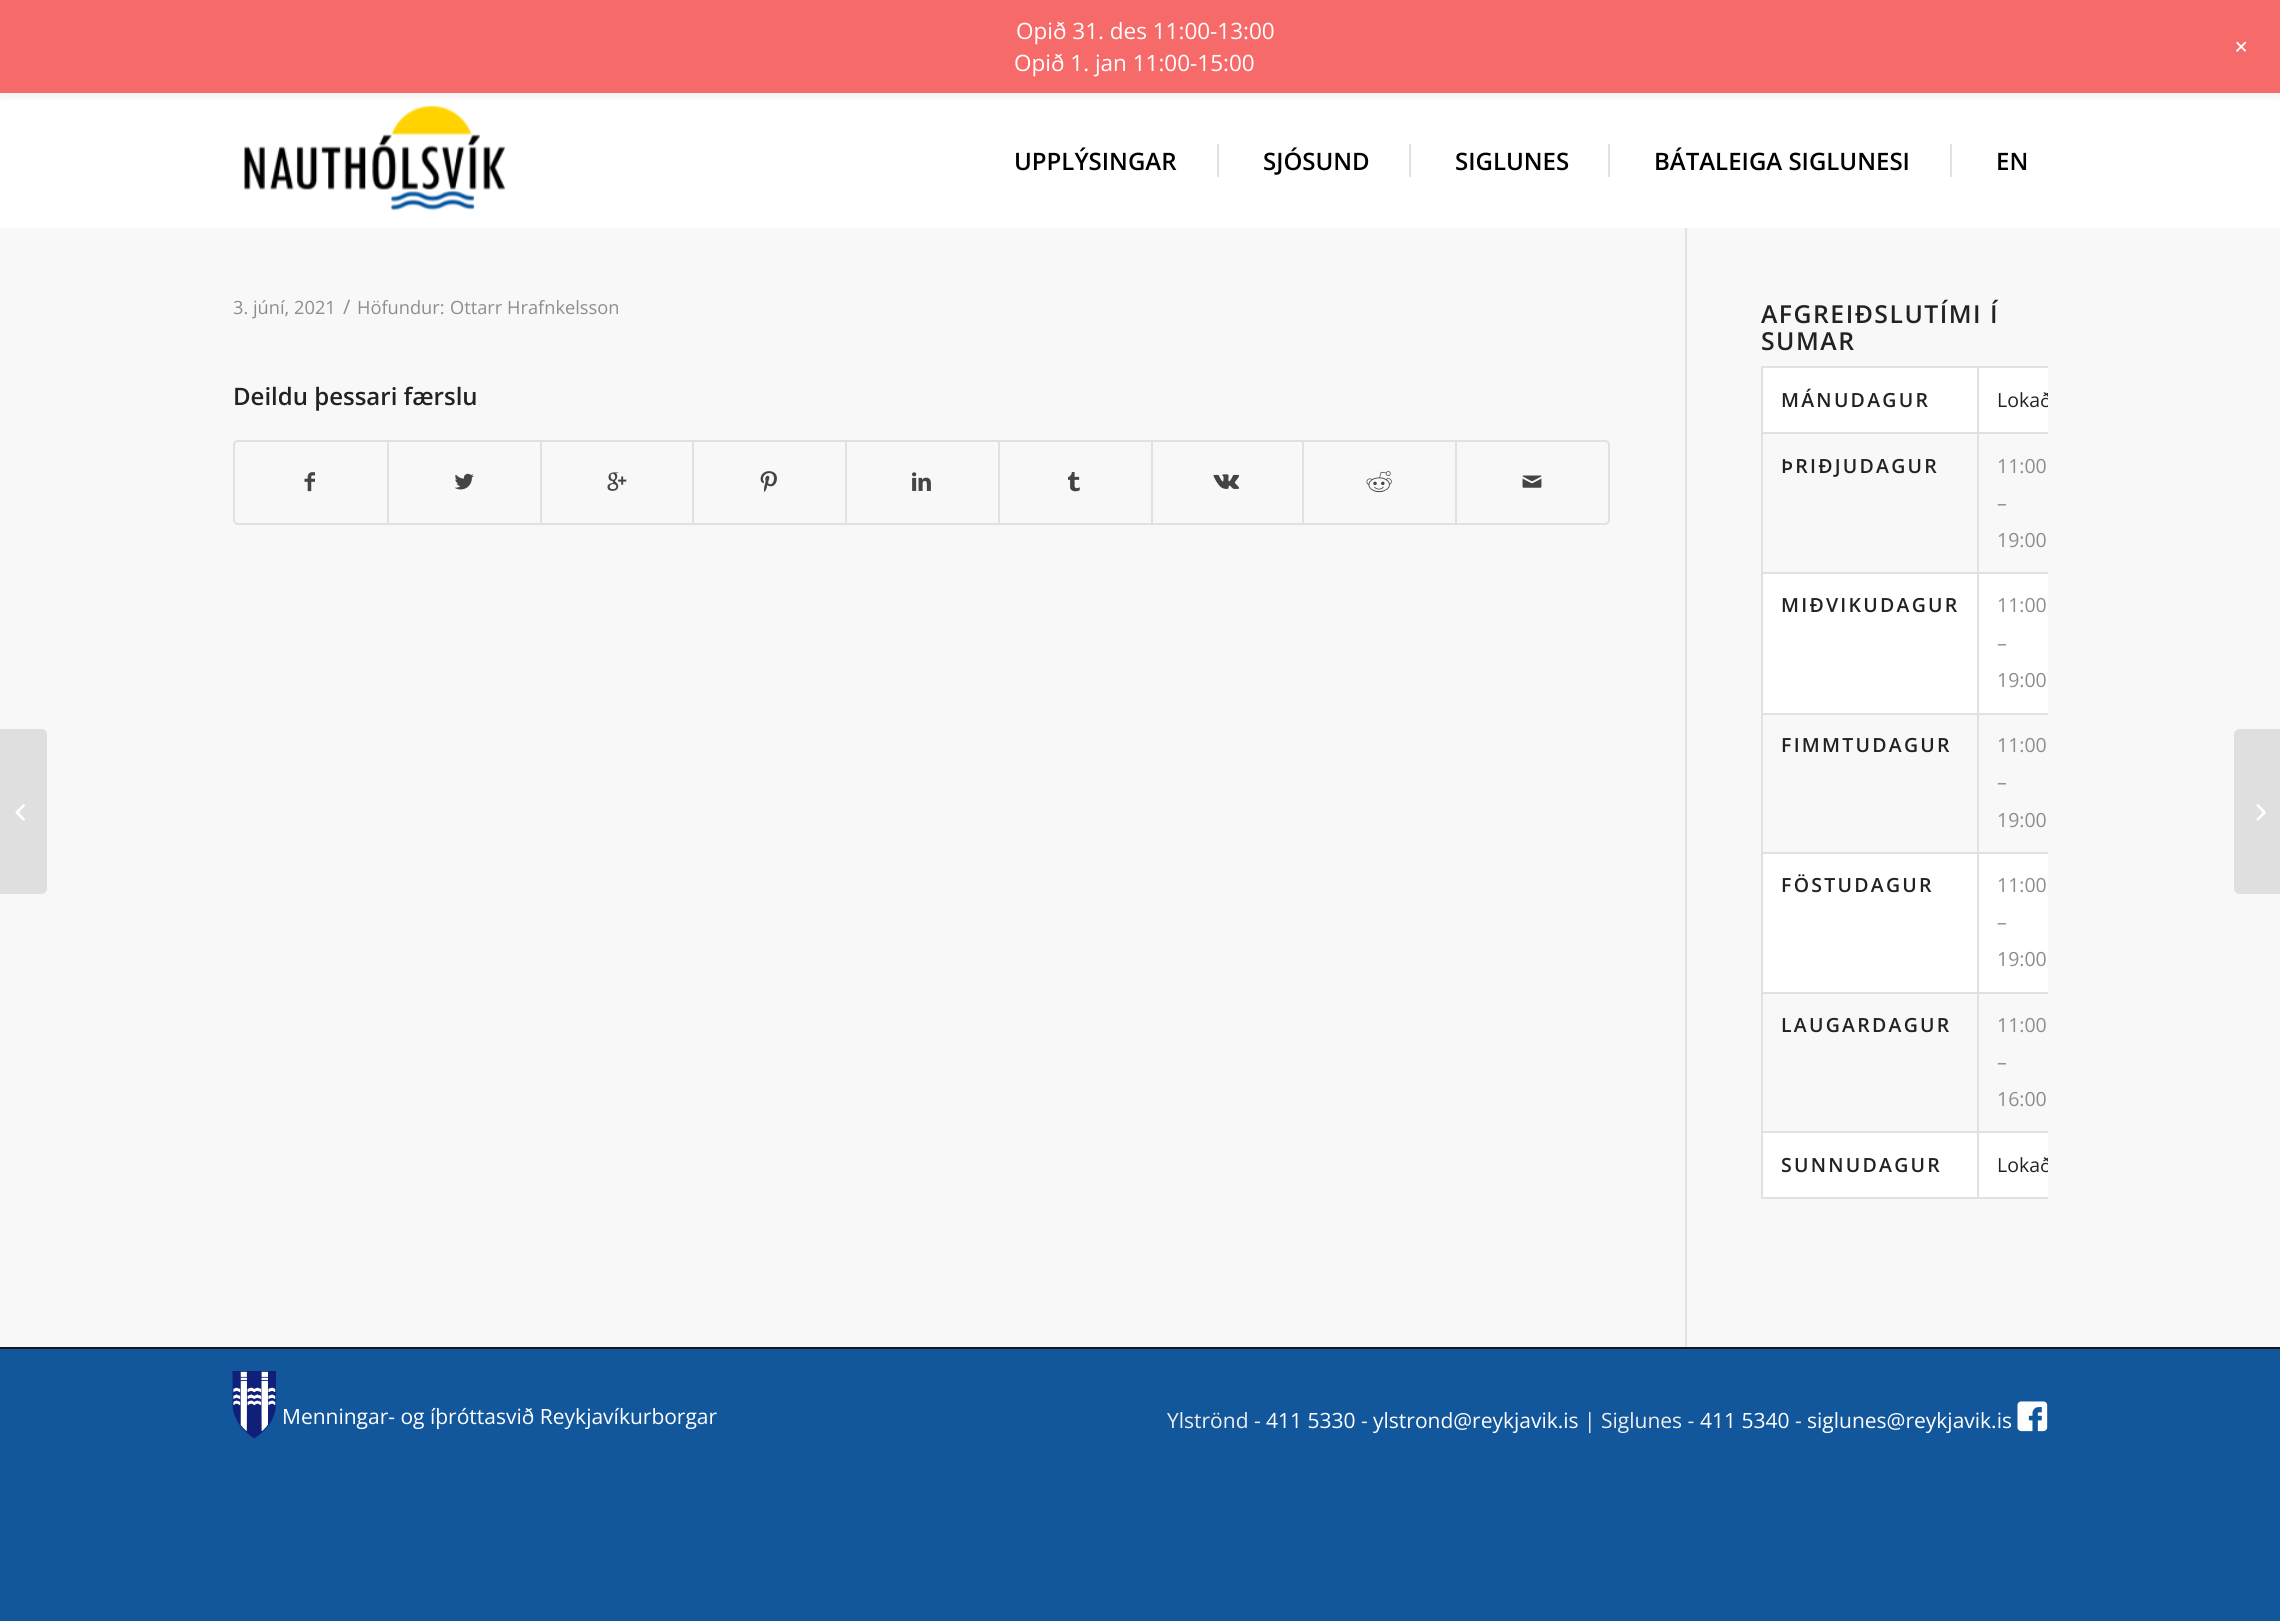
#include <cairo.h>
#include <math.h>
#include <stddef.h>

typedef struct { double x, y; const char *s; } line_t;
typedef struct { double x, y, w, h; unsigned color; } box_t;

static void ink(cairo_t *ctx, unsigned color) {
    cairo_set_source_rgb(ctx, (color >> 16) / 255.0, (color >> 8 & 255) / 255.0, (color & 255) / 255.0);
}

static void write_spaced(cairo_t *ctx, double x, double y, const char *s, double letter, double word) {
    cairo_move_to(ctx, x, y);
    while (*s) {
        char ch[5] = {0};
        int n = 0;
        do ch[n++] = *s++; while ((*s & 0xC0) == 0x80);
        cairo_show_text(ctx, ch);
        cairo_rel_move_to(ctx, letter + word * (*ch == ' '), 0);
    }
}

static void round_path(cairo_t *ctx, double x, double y, double w, double h, double r) {
    cairo_new_sub_path(ctx);
    cairo_arc(ctx, x + w - r, y + h - r, r, 0, M_PI / 2);
    cairo_arc(ctx, x + r, y + h - r, r, M_PI / 2, M_PI);
    cairo_arc(ctx, x + r, y + r, r, M_PI, 1.5 * M_PI);
    cairo_arc(ctx, x + w - r, y + r, r, 1.5 * M_PI, 2 * M_PI);
    cairo_close_path(ctx);
}

static void blur_box(cairo_t *ctx, double x, double y, double w, double h, double r, double blur, double alpha) {
    cairo_push_group_with_content(ctx, CAIRO_CONTENT_ALPHA);
    cairo_set_operator(ctx, CAIRO_OPERATOR_SOURCE);
    for (int i = 15; i >= -15 && fmin(w, h) + blur * i / 3 > 0; i -= 2) {
        double e = blur * i / 6;
        cairo_set_source_rgba(ctx, 0, 0, 0, alpha * erfc((i - 1) / 8.5) / 2);
        round_path(ctx, x - e, y - e, w + 2 * e, h + 2 * e, fmax(0, fmin(r + e + blur * .6, fmin(w, h) / 2 + e)));
        cairo_fill(ctx);
    }
    cairo_pattern_t *soft = cairo_pop_group(ctx);
    cairo_mask(ctx, soft);
    cairo_pattern_destroy(soft);
}

static void paste(cairo_t *ctx, const char *path, double x, double y, double w, double h) {
    cairo_surface_t *image = cairo_image_surface_create_from_png(path);
    cairo_save(ctx);
    cairo_set_source_surface(ctx, image, x, y);
    cairo_rectangle(ctx, x, y, w, h);
    cairo_fill(ctx);
    cairo_restore(ctx);
    cairo_surface_destroy(image);
}

int main(void) {
    cairo_surface_t *surface = cairo_image_surface_create(CAIRO_FORMAT_RGB24, 2280, 1621);
    cairo_t *ctx = cairo_create(surface);
    cairo_font_options_t *options = cairo_font_options_create();
    cairo_font_options_set_hint_metrics(options, CAIRO_HINT_METRICS_OFF);
    cairo_font_options_set_hint_style(options, CAIRO_HINT_STYLE_NONE);
    cairo_set_font_options(ctx, options);
    cairo_set_miter_limit(ctx, 4);
    ink(ctx, 0x12579C);
    cairo_paint(ctx);
    {
        static const box_t items[] = {
            {0, 228, 2280, 1119, 0xF8F8F8},
            {1685, 225, 2, 1124, 0xE1E1E1},
            {0, 93, 2280, 135, 0xFFFFFF},
        };
        for (size_t i = 0; i < sizeof items / sizeof *items; i++) {
            ink(ctx, items[i].color);
            cairo_rectangle(ctx, items[i].x, items[i].y, items[i].w, items[i].h);
            cairo_fill(ctx);
        }
    }
    paste(ctx, "media/1.png", 244, 105, 262, 106);
    ink(ctx, 0x000000);
    blur_box(ctx, 0, 5, 2280, 93, 0, 3, 0.05);
    ink(ctx, 0xF76A6A);
    cairo_rectangle(ctx, 0, 0, 2280, 93);
    cairo_fill(ctx);
    cairo_select_font_face(ctx, "Open Sans", CAIRO_FONT_SLANT_NORMAL, CAIRO_FONT_WEIGHT_NORMAL);
    cairo_set_font_size(ctx, 22.5);
    ink(ctx, 0xFFFFFF);
    cairo_move_to(ctx, 1016, 39);
    cairo_show_text(ctx, "Opið 31. des 11:00-13:00");
    cairo_move_to(ctx, 1014, 71);
    cairo_show_text(ctx, "Opið 1. jan 11:00-15:00");
    cairo_set_font_size(ctx, 27);
    cairo_save(ctx);
    cairo_translate(ctx, 2229, 48);
    cairo_rotate(ctx, 45 * M_PI / 180);
    cairo_move_to(ctx, 0, 0);
    cairo_show_text(ctx, "+");
    cairo_restore(ctx);
    cairo_select_font_face(ctx, "Open Sans SemiBold", CAIRO_FONT_SLANT_NORMAL, CAIRO_FONT_WEIGHT_NORMAL);
    cairo_set_font_size(ctx, 24);
    ink(ctx, 0x000000);
    cairo_move_to(ctx, 1014, 170);
    cairo_show_text(ctx, "UPPLÝSINGAR");
    cairo_move_to(ctx, 1263, 170);
    cairo_show_text(ctx, "SJÓSUND");
    ink(ctx, 0xE1E1E1);
    cairo_rectangle(ctx, 1217, 144, 2, 33);
    cairo_fill(ctx);
    ink(ctx, 0x000000);
    cairo_move_to(ctx, 1455, 170);
    cairo_show_text(ctx, "SIGLUNES");
    ink(ctx, 0xE1E1E1);
    cairo_rectangle(ctx, 1409, 144, 2, 33);
    cairo_fill(ctx);
    ink(ctx, 0x000000);
    cairo_move_to(ctx, 1654, 170);
    cairo_show_text(ctx, "BÁTALEIGA SIGLUNESI");
    ink(ctx, 0xE1E1E1);
    cairo_rectangle(ctx, 1608, 144, 2, 33);
    cairo_fill(ctx);
    ink(ctx, 0x000000);
    cairo_move_to(ctx, 1996, 170);
    cairo_show_text(ctx, "EN");
    ink(ctx, 0xE1E1E1);
    cairo_rectangle(ctx, 1950, 144, 2, 33);
    cairo_fill(ctx);
    ink(ctx, 0xDFDFDF);
    cairo_new_path(ctx);
    cairo_move_to(ctx, 0, 729);
    cairo_line_to(ctx, 41, 729);
    cairo_curve_to(ctx, 44.5, 729, 47, 731.5, 47, 735);
    cairo_line_to(ctx, 47, 888);
    cairo_curve_to(ctx, 47, 891.5, 44.5, 894, 41, 894);
    cairo_line_to(ctx, 0, 894);
    cairo_close_path(ctx);
    cairo_fill(ctx);
    paste(ctx, "media/2.png", 15, 804, 10, 17);
    cairo_select_font_face(ctx, "Open Sans", CAIRO_FONT_SLANT_NORMAL, CAIRO_FONT_WEIGHT_NORMAL);
    cairo_set_font_size(ctx, 18.25);
    ink(ctx, 0x8D8D8D);
    cairo_move_to(ctx, 233, 314);
    cairo_show_text(ctx, "3. júní, 2021");
    cairo_set_font_size(ctx, 20);
    cairo_move_to(ctx, 343, 314);
    cairo_show_text(ctx, "/");
    cairo_set_font_size(ctx, 18.25);
    cairo_move_to(ctx, 357, 314);
    cairo_show_text(ctx, "Höfundur:");
    cairo_save(ctx);
    cairo_rectangle(ctx, 233, 300, 1452, 300);
    cairo_clip(ctx);
    cairo_move_to(ctx, 450, 314);
    cairo_show_text(ctx, "Óttarr Hrafnkelsson");
    cairo_restore(ctx);
    cairo_select_font_face(ctx, "Open Sans SemiBold", CAIRO_FONT_SLANT_NORMAL, CAIRO_FONT_WEIGHT_NORMAL);
    cairo_set_font_size(ctx, 24);
    ink(ctx, 0x222222);
    cairo_move_to(ctx, 233, 405);
    cairo_show_text(ctx, "Deildu þessari færslu");
    round_path(ctx, 234, 441, 1375, 83, 4);
    ink(ctx, 0xE1E1E1);
    cairo_stroke(ctx);
    paste(ctx, "media/3.png", 304, 472, 11, 20);
    cairo_rectangle(ctx, 387, 441, 2, 83);
    cairo_fill(ctx);
    paste(ctx, "media/4.png", 454, 473, 20, 17);
    cairo_rectangle(ctx, 540, 441, 2, 83);
    cairo_fill(ctx);
    paste(ctx, "media/5.png", 607, 472, 20, 19);
    cairo_rectangle(ctx, 692, 441, 2, 83);
    cairo_fill(ctx);
    paste(ctx, "media/6.png", 760, 471, 17, 21);
    cairo_rectangle(ctx, 845, 441, 2, 83);
    cairo_fill(ctx);
    paste(ctx, "media/7.png", 912, 472, 19, 19);
    cairo_rectangle(ctx, 998, 441, 2, 83);
    cairo_fill(ctx);
    paste(ctx, "media/8.png", 1068, 472, 12, 20);
    cairo_rectangle(ctx, 1151, 441, 2, 83);
    cairo_fill(ctx);
    paste(ctx, "media/9.png", 1213, 474, 27, 15);
    cairo_rectangle(ctx, 1302, 441, 2, 83);
    cairo_fill(ctx);
    paste(ctx, "media/10.png", 1366, 471, 26, 22);
    cairo_rectangle(ctx, 1455, 441, 2, 83);
    cairo_fill(ctx);
    paste(ctx, "media/11.png", 1522, 475, 20, 13);
    cairo_set_font_size(ctx, 24.75);
    ink(ctx, 0x222222);
    write_spaced(ctx, 1761, 323, "AFGREIÐSLUTÍMI Í", 1.5, 0);
    write_spaced(ctx, 1761, 350, "SUMAR", 1.5, 0);
    {
        static const box_t items[] = {
            {1763, 368, 285, 829, 0xFFFFFF},
            {1761, 366, 287, 2, 0xE1E1E1},
            {1763, 434, 285, 138, 0xF8F8F8},
            {1763, 715, 285, 137, 0xF8F8F8},
            {1763, 994, 285, 137, 0xF8F8F8},
            {1977, 1197, 71, 2, 0xE1E1E1},
            {1977, 1131, 2, 68, 0xE1E1E1},
            {1977, 1131, 71, 2, 0xE1E1E1},
            {1977, 992, 2, 141, 0xE1E1E1},
            {1977, 992, 71, 2, 0xE1E1E1},
            {1977, 852, 2, 141, 0xE1E1E1},
            {1977, 852, 71, 2, 0xE1E1E1},
            {1977, 713, 2, 141, 0xE1E1E1},
            {1977, 713, 71, 2, 0xE1E1E1},
            {1977, 572, 2, 142, 0xE1E1E1},
            {1977, 572, 71, 2, 0xE1E1E1},
            {1977, 432, 2, 141, 0xE1E1E1},
            {1977, 432, 71, 2, 0xE1E1E1},
            {1977, 366, 2, 68, 0xE1E1E1},
            {1761, 1197, 218, 2, 0xE1E1E1},
            {1761, 1131, 2, 68, 0xE1E1E1},
            {1761, 1131, 218, 2, 0xE1E1E1},
            {1761, 992, 2, 141, 0xE1E1E1},
            {1761, 992, 218, 2, 0xE1E1E1},
            {1761, 852, 2, 141, 0xE1E1E1},
            {1761, 852, 218, 2, 0xE1E1E1},
            {1761, 713, 2, 141, 0xE1E1E1},
            {1761, 713, 218, 2, 0xE1E1E1},
            {1761, 572, 2, 142, 0xE1E1E1},
            {1761, 572, 218, 2, 0xE1E1E1},
            {1761, 432, 2, 141, 0xE1E1E1},
            {1761, 432, 218, 2, 0xE1E1E1},
            {1761, 366, 2, 68, 0xE1E1E1},
        };
        for (size_t i = 0; i < sizeof items / sizeof *items; i++) {
            ink(ctx, items[i].color);
            cairo_rectangle(ctx, items[i].x, items[i].y, items[i].w, items[i].h);
            cairo_fill(ctx);
        }
    }
    cairo_set_font_size(ctx, 19.5);
    ink(ctx, 0x222222);
    write_spaced(ctx, 1781, 407, "MÁNUDAGUR", 2.25, 0);
    cairo_save(ctx);
    cairo_rectangle(ctx, 1686, 225, 362, 1124);
    cairo_clip(ctx);
    cairo_select_font_face(ctx, "Open Sans", CAIRO_FONT_SLANT_NORMAL, CAIRO_FONT_WEIGHT_NORMAL);
    cairo_move_to(ctx, 1997, 407);
    cairo_show_text(ctx, "Lokað");
    cairo_restore(ctx);
    write_spaced(ctx, 1781, 473, "ÞRIÐJUDAGUR", 2.25, 0);
    cairo_select_font_face(ctx, "Open Sans", CAIRO_FONT_SLANT_NORMAL, CAIRO_FONT_WEIGHT_NORMAL);
    ink(ctx, 0x8D8D8D);
    {
        static const line_t items[] = {
            {1997, 473, "11:00"},
            {1997, 510, "–"},
            {1997, 547, "19:00"},
        };
        for (size_t i = 0; i < sizeof items / sizeof *items; i++) {
            cairo_move_to(ctx, items[i].x, items[i].y);
            cairo_show_text(ctx, items[i].s);
        }
    }
    cairo_select_font_face(ctx, "Open Sans SemiBold", CAIRO_FONT_SLANT_NORMAL, CAIRO_FONT_WEIGHT_NORMAL);
    ink(ctx, 0x222222);
    write_spaced(ctx, 1781, 612, "MIÐVIKUDAGUR", 2.25, 0);
    cairo_select_font_face(ctx, "Open Sans", CAIRO_FONT_SLANT_NORMAL, CAIRO_FONT_WEIGHT_NORMAL);
    ink(ctx, 0x8D8D8D);
    {
        static const line_t items[] = {
            {1997, 612, "11:00"},
            {1997, 650, "–"},
            {1997, 687, "19:00"},
        };
        for (size_t i = 0; i < sizeof items / sizeof *items; i++) {
            cairo_move_to(ctx, items[i].x, items[i].y);
            cairo_show_text(ctx, items[i].s);
        }
    }
    cairo_select_font_face(ctx, "Open Sans SemiBold", CAIRO_FONT_SLANT_NORMAL, CAIRO_FONT_WEIGHT_NORMAL);
    ink(ctx, 0x222222);
    write_spaced(ctx, 1781, 752, "FIMMTUDAGUR", 2.25, 0);
    cairo_select_font_face(ctx, "Open Sans", CAIRO_FONT_SLANT_NORMAL, CAIRO_FONT_WEIGHT_NORMAL);
    ink(ctx, 0x8D8D8D);
    {
        static const line_t items[] = {
            {1997, 752, "11:00"},
            {1997, 789, "–"},
            {1997, 827, "19:00"},
        };
        for (size_t i = 0; i < sizeof items / sizeof *items; i++) {
            cairo_move_to(ctx, items[i].x, items[i].y);
            cairo_show_text(ctx, items[i].s);
        }
    }
    cairo_select_font_face(ctx, "Open Sans SemiBold", CAIRO_FONT_SLANT_NORMAL, CAIRO_FONT_WEIGHT_NORMAL);
    ink(ctx, 0x222222);
    write_spaced(ctx, 1781, 892, "FÖSTUDAGUR", 2.25, 0);
    cairo_select_font_face(ctx, "Open Sans", CAIRO_FONT_SLANT_NORMAL, CAIRO_FONT_WEIGHT_NORMAL);
    ink(ctx, 0x8D8D8D);
    {
        static const line_t items[] = {
            {1997, 892, "11:00"},
            {1997, 929, "–"},
            {1997, 966, "19:00"},
        };
        for (size_t i = 0; i < sizeof items / sizeof *items; i++) {
            cairo_move_to(ctx, items[i].x, items[i].y);
            cairo_show_text(ctx, items[i].s);
        }
    }
    cairo_select_font_face(ctx, "Open Sans SemiBold", CAIRO_FONT_SLANT_NORMAL, CAIRO_FONT_WEIGHT_NORMAL);
    ink(ctx, 0x222222);
    write_spaced(ctx, 1781, 1032, "LAUGARDAGUR", 2.25, 0);
    cairo_select_font_face(ctx, "Open Sans", CAIRO_FONT_SLANT_NORMAL, CAIRO_FONT_WEIGHT_NORMAL);
    ink(ctx, 0x8D8D8D);
    {
        static const line_t items[] = {
            {1997, 1032, "11:00"},
            {1997, 1069, "–"},
            {1997, 1106, "16:00"},
        };
        for (size_t i = 0; i < sizeof items / sizeof *items; i++) {
            cairo_move_to(ctx, items[i].x, items[i].y);
            cairo_show_text(ctx, items[i].s);
        }
    }
    cairo_select_font_face(ctx, "Open Sans SemiBold", CAIRO_FONT_SLANT_NORMAL, CAIRO_FONT_WEIGHT_NORMAL);
    ink(ctx, 0x222222);
    write_spaced(ctx, 1781, 1172, "SUNNUDAGUR", 2.25, 0);
    cairo_save(ctx);
    cairo_rectangle(ctx, 1686, 225, 362, 1124);
    cairo_clip(ctx);
    cairo_select_font_face(ctx, "Open Sans", CAIRO_FONT_SLANT_NORMAL, CAIRO_FONT_WEIGHT_NORMAL);
    cairo_move_to(ctx, 1997, 1172);
    cairo_show_text(ctx, "Lokað");
    cairo_restore(ctx);
    ink(ctx, 0x161616);
    cairo_rectangle(ctx, 0, 1347, 2280, 2);
    cairo_fill(ctx);
    paste(ctx, "media/12.png", 232, 1371, 44, 68);
    cairo_select_font_face(ctx, "Open Sans", CAIRO_FONT_SLANT_NORMAL, CAIRO_FONT_WEIGHT_NORMAL);
    cairo_set_font_size(ctx, 21);
    ink(ctx, 0xFFFFFF);
    cairo_move_to(ctx, 282, 1424);
    cairo_show_text(ctx, "Menningar- og íþróttasvið Reykjavíkurborgar");
    ink(ctx, 0xEEEEEE);
    cairo_move_to(ctx, 1167, 1428);
    cairo_show_text(ctx, "Ylströnd -");
    ink(ctx, 0xFFFFFF);
    cairo_move_to(ctx, 1266, 1428);
    cairo_show_text(ctx, "411 5330");
    ink(ctx, 0xEEEEEE);
    cairo_move_to(ctx, 1361, 1428);
    cairo_show_text(ctx, "-");
    ink(ctx, 0xFFFFFF);
    cairo_move_to(ctx, 1373, 1428);
    cairo_show_text(ctx, "ylstrond@reykjavik.is");
    ink(ctx, 0xEEEEEE);
    cairo_move_to(ctx, 1584, 1428);
    cairo_show_text(ctx, "| Siglunes -");
    ink(ctx, 0xFFFFFF);
    cairo_move_to(ctx, 1700, 1428);
    cairo_show_text(ctx, "411 5340");
    ink(ctx, 0xEEEEEE);
    cairo_move_to(ctx, 1795, 1428);
    cairo_show_text(ctx, "-");
    ink(ctx, 0xFFFFFF);
    cairo_move_to(ctx, 1807, 1428);
    cairo_show_text(ctx, "siglunes@reykjavik.is");
    paste(ctx, "media/13.png", 2017, 1401, 31, 31);
    ink(ctx, 0xDFDFDF);
    cairo_new_path(ctx);
    cairo_move_to(ctx, 2240, 729);
    cairo_line_to(ctx, 2280, 729);
    cairo_line_to(ctx, 2280, 894);
    cairo_line_to(ctx, 2240, 894);
    cairo_curve_to(ctx, 2236.5, 894, 2234, 891.5, 2234, 888);
    cairo_line_to(ctx, 2234, 735);
    cairo_curve_to(ctx, 2234, 731.5, 2236.5, 729, 2240, 729);
    cairo_close_path(ctx);
    cairo_fill(ctx);
    paste(ctx, "media/14.png", 2256, 804, 10, 17);
    cairo_surface_write_to_png(surface, "image.png");
    cairo_font_options_destroy(options);
    cairo_destroy(ctx);
    cairo_surface_destroy(surface);
    return 0;
}
